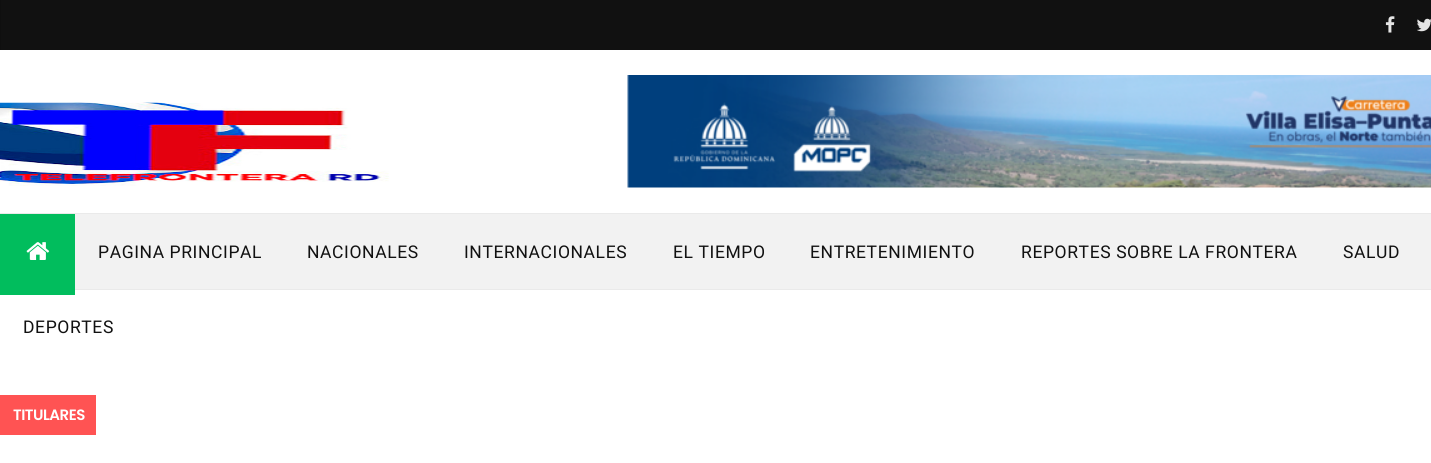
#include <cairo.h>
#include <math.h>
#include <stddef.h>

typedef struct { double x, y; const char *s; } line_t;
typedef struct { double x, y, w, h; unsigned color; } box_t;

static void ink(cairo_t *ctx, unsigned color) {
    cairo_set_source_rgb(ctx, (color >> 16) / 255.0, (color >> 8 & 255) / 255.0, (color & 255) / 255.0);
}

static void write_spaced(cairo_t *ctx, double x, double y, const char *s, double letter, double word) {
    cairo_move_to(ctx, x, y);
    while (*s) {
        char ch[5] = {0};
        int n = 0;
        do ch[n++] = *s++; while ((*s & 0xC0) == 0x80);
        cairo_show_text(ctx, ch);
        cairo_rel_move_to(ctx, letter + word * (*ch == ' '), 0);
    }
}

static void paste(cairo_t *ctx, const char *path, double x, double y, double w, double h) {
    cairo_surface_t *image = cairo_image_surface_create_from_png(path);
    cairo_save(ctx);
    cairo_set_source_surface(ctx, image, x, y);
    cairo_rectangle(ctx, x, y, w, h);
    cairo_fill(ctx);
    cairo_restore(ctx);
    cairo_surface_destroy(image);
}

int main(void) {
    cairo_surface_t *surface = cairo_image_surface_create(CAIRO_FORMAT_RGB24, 1431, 463);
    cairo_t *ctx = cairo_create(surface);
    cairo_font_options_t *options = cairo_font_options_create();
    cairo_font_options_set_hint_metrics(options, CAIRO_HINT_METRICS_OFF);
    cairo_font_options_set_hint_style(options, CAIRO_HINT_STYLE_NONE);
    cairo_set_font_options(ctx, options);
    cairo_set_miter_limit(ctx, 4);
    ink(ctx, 0xFFFFFF);
    cairo_paint(ctx);
    ink(ctx, 0x111111);
    cairo_rectangle(ctx, 1, 0, 1430, 50);
    cairo_fill(ctx);
    ink(ctx, 0x0F0F0F);
    cairo_rectangle(ctx, 0, 0, 1, 50);
    cairo_fill(ctx);
    paste(ctx, "media/1.png", 1385, 16, 10, 17);
    paste(ctx, "media/2.png", 1417, 18, 14, 14);
    paste(ctx, "media/3.png", 0, 102, 389, 84);
    paste(ctx, "media/4.png", 627, 75, 804, 113);
    {
        static const box_t items[] = {
            {75, 214, 1356, 75, 0xF2F2F2},
            {0, 213, 1431, 1, 0xEAEAEA},
            {75, 289, 1356, 1, 0xEAEAEA},
            {0, 214, 75, 81, 0x01BD5D},
        };
        for (size_t i = 0; i < sizeof items / sizeof *items; i++) {
            ink(ctx, items[i].color);
            cairo_rectangle(ctx, items[i].x, items[i].y, items[i].w, items[i].h);
            cairo_fill(ctx);
        }
    }
    paste(ctx, "media/5.png", 26, 242, 24, 18);
    cairo_select_font_face(ctx, "Roboto", CAIRO_FONT_SLANT_NORMAL, CAIRO_FONT_WEIGHT_NORMAL);
    cairo_set_font_size(ctx, 17.5);
    ink(ctx, 0x111111);
    {
        static const line_t items[] = {
            {98, 258, "PAGINA PRINCIPAL"},
            {307, 258, "NACIONALES"},
            {464, 258, "INTERNACIONALES"},
            {673, 258, "EL TIEMPO"},
            {810, 258, "ENTRETENIMIENTO"},
            {1021, 258, "REPORTES SOBRE LA FRONTERA"},
            {1343, 258, "SALUD"},
            {23, 333, "DEPORTES"},
        };
        for (size_t i = 0; i < sizeof items / sizeof *items; i++) {
            write_spaced(ctx, items[i].x, items[i].y, items[i].s, 0.6, 0);
        }
    }
    ink(ctx, 0xFF5353);
    cairo_rectangle(ctx, 0, 395, 96, 40);
    cairo_fill(ctx);
    cairo_select_font_face(ctx, "Poppins SemiBold", CAIRO_FONT_SLANT_NORMAL, CAIRO_FONT_WEIGHT_NORMAL);
    cairo_set_font_size(ctx, 15);
    ink(ctx, 0xFFFFFF);
    write_spaced(ctx, 13, 420, "TITULARES", -0.5, 0);
    cairo_surface_write_to_png(surface, "image.png");
    cairo_font_options_destroy(options);
    cairo_destroy(ctx);
    cairo_surface_destroy(surface);
    return 0;
}
